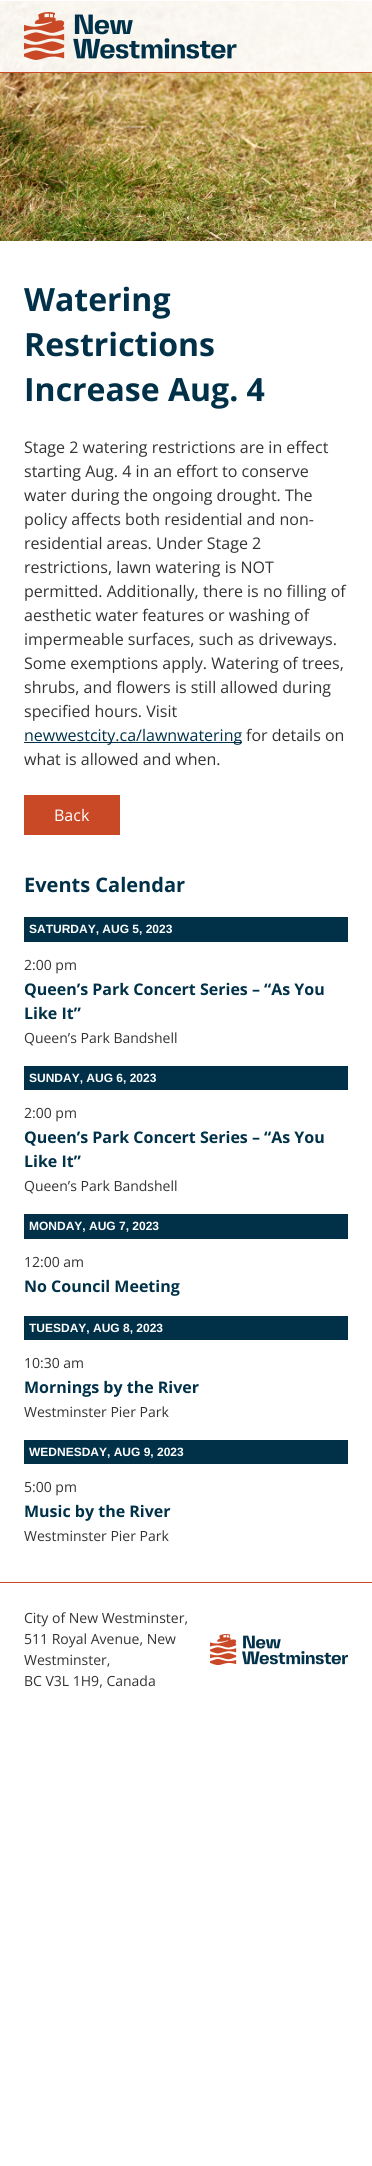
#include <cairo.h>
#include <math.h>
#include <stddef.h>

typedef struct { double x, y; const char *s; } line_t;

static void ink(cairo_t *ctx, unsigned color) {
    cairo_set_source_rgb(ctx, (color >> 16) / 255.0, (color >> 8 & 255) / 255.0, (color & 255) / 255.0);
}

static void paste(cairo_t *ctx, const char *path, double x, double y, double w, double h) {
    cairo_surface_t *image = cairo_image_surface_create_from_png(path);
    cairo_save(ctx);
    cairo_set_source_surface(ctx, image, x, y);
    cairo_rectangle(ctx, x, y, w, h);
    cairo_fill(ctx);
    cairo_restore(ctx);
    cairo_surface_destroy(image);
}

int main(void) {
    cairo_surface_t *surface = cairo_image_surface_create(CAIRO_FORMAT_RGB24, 372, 2166);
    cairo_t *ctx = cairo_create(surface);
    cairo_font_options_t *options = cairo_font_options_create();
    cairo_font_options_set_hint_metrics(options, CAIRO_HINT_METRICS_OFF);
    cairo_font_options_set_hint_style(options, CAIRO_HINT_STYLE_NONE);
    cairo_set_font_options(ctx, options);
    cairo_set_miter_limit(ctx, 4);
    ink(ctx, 0xFFFFFF);
    cairo_paint(ctx);
    paste(ctx, "media/2.png", 0, 1, 372, 240);
    cairo_set_source_rgba(ctx, 1, 1, 1, 0.9);
    cairo_rectangle(ctx, 0, 1, 372, 71);
    cairo_fill(ctx);
    ink(ctx, 0xC94927);
    cairo_rectangle(ctx, 0, 72, 372, 1);
    cairo_fill(ctx);
    paste(ctx, "media/1.png", 24, 12, 213, 48);
    cairo_select_font_face(ctx, "Open Sans", CAIRO_FONT_SLANT_NORMAL, CAIRO_FONT_WEIGHT_BOLD);
    cairo_set_font_size(ctx, 32);
    ink(ctx, 0x003149);
    {
        static const line_t items[] = {
            {24, 311, "Watering"},
            {24, 356, "Restrictions"},
            {24, 401, "Increase Aug. 4"},
        };
        for (size_t i = 0; i < sizeof items / sizeof *items; i++) {
            cairo_move_to(ctx, items[i].x, items[i].y);
            cairo_show_text(ctx, items[i].s);
        }
    }
    cairo_select_font_face(ctx, "Open Sans", CAIRO_FONT_SLANT_NORMAL, CAIRO_FONT_WEIGHT_NORMAL);
    cairo_set_font_size(ctx, 16);
    ink(ctx, 0x333333);
    {
        static const line_t items[] = {
            {24, 453, "Stage 2 watering restrictions are in effect"},
            {24, 477, "starting Aug. 4 in an effort to conserve"},
            {24, 501, "water during the ongoing drought. The"},
            {24, 525, "policy affects both residential and non-"},
            {24, 549, "residential areas. Under Stage 2"},
            {24, 573, "restrictions, lawn watering is NOT"},
            {24, 597, "permitted. Additionally, there is no filling of"},
            {24, 621, "aesthetic water features or washing of"},
            {24, 645, "impermeable surfaces, such as driveways."},
            {24, 669, "Some exemptions apply. Watering of trees,"},
            {24, 693, "shrubs, and flowers is still allowed during"},
            {24, 717, "specified hours. Visit"},
        };
        for (size_t i = 0; i < sizeof items / sizeof *items; i++) {
            cairo_move_to(ctx, items[i].x, items[i].y);
            cairo_show_text(ctx, items[i].s);
        }
    }
    ink(ctx, 0x003149);
    cairo_rectangle(ctx, 24, 742, 218, 1);
    cairo_fill(ctx);
    cairo_move_to(ctx, 24, 741);
    cairo_show_text(ctx, "newwestcity.ca/lawnwatering");
    ink(ctx, 0x333333);
    cairo_move_to(ctx, 246, 741);
    cairo_show_text(ctx, "for details on");
    cairo_move_to(ctx, 24, 765);
    cairo_show_text(ctx, "what is allowed and when.");
    ink(ctx, 0xC94927);
    cairo_rectangle(ctx, 24, 795, 96, 40);
    cairo_fill(ctx);
    ink(ctx, 0xFFFFFF);
    cairo_move_to(ctx, 54, 821);
    cairo_show_text(ctx, "Back");
    cairo_select_font_face(ctx, "Open Sans", CAIRO_FONT_SLANT_NORMAL, CAIRO_FONT_WEIGHT_BOLD);
    cairo_set_font_size(ctx, 20);
    ink(ctx, 0x003149);
    cairo_move_to(ctx, 24, 892);
    cairo_show_text(ctx, "Events Calendar");
    cairo_rectangle(ctx, 24, 917, 324, 25);
    cairo_fill(ctx);
    cairo_select_font_face(ctx, "Liberation Sans", CAIRO_FONT_SLANT_NORMAL, CAIRO_FONT_WEIGHT_BOLD);
    cairo_set_font_size(ctx, 12);
    ink(ctx, 0xFFFFFF);
    cairo_move_to(ctx, 29, 933);
    cairo_show_text(ctx, "SATURDAY, AUG 5, 2023");
    cairo_select_font_face(ctx, "Open Sans", CAIRO_FONT_SLANT_NORMAL, CAIRO_FONT_WEIGHT_NORMAL);
    cairo_set_font_size(ctx, 14);
    ink(ctx, 0x333333);
    cairo_move_to(ctx, 24, 970);
    cairo_show_text(ctx, "2:00 pm");
    cairo_select_font_face(ctx, "Open Sans", CAIRO_FONT_SLANT_NORMAL, CAIRO_FONT_WEIGHT_BOLD);
    cairo_set_font_size(ctx, 16);
    ink(ctx, 0x003149);
    cairo_move_to(ctx, 24, 995);
    cairo_show_text(ctx, "Queen’s Park Concert Series – “As You");
    cairo_move_to(ctx, 24, 1019);
    cairo_show_text(ctx, "Like It”");
    cairo_select_font_face(ctx, "Open Sans", CAIRO_FONT_SLANT_NORMAL, CAIRO_FONT_WEIGHT_NORMAL);
    cairo_set_font_size(ctx, 14);
    ink(ctx, 0x333333);
    cairo_move_to(ctx, 24, 1043);
    cairo_show_text(ctx, "Queen’s Park Bandshell");
    ink(ctx, 0x003149);
    cairo_rectangle(ctx, 24, 1066, 324, 24);
    cairo_fill(ctx);
    cairo_select_font_face(ctx, "Liberation Sans", CAIRO_FONT_SLANT_NORMAL, CAIRO_FONT_WEIGHT_BOLD);
    cairo_set_font_size(ctx, 12);
    ink(ctx, 0xFFFFFF);
    cairo_move_to(ctx, 29, 1082);
    cairo_show_text(ctx, "SUNDAY, AUG 6, 2023");
    cairo_select_font_face(ctx, "Open Sans", CAIRO_FONT_SLANT_NORMAL, CAIRO_FONT_WEIGHT_NORMAL);
    cairo_set_font_size(ctx, 14);
    ink(ctx, 0x333333);
    cairo_move_to(ctx, 24, 1118);
    cairo_show_text(ctx, "2:00 pm");
    cairo_select_font_face(ctx, "Open Sans", CAIRO_FONT_SLANT_NORMAL, CAIRO_FONT_WEIGHT_BOLD);
    cairo_set_font_size(ctx, 16);
    ink(ctx, 0x003149);
    cairo_move_to(ctx, 24, 1143);
    cairo_show_text(ctx, "Queen’s Park Concert Series – “As You");
    cairo_move_to(ctx, 24, 1167);
    cairo_show_text(ctx, "Like It”");
    cairo_select_font_face(ctx, "Open Sans", CAIRO_FONT_SLANT_NORMAL, CAIRO_FONT_WEIGHT_NORMAL);
    cairo_set_font_size(ctx, 14);
    ink(ctx, 0x333333);
    cairo_move_to(ctx, 24, 1191);
    cairo_show_text(ctx, "Queen’s Park Bandshell");
    ink(ctx, 0x003149);
    cairo_rectangle(ctx, 24, 1214, 324, 25);
    cairo_fill(ctx);
    cairo_select_font_face(ctx, "Liberation Sans", CAIRO_FONT_SLANT_NORMAL, CAIRO_FONT_WEIGHT_BOLD);
    cairo_set_font_size(ctx, 12);
    ink(ctx, 0xFFFFFF);
    cairo_move_to(ctx, 29, 1230);
    cairo_show_text(ctx, "MONDAY, AUG 7, 2023");
    cairo_select_font_face(ctx, "Open Sans", CAIRO_FONT_SLANT_NORMAL, CAIRO_FONT_WEIGHT_NORMAL);
    cairo_set_font_size(ctx, 14);
    ink(ctx, 0x333333);
    cairo_move_to(ctx, 24, 1267);
    cairo_show_text(ctx, "12:00 am");
    cairo_select_font_face(ctx, "Open Sans", CAIRO_FONT_SLANT_NORMAL, CAIRO_FONT_WEIGHT_BOLD);
    cairo_set_font_size(ctx, 16);
    ink(ctx, 0x003149);
    cairo_move_to(ctx, 24, 1292);
    cairo_show_text(ctx, "No Council Meeting");
    cairo_rectangle(ctx, 24, 1316, 324, 24);
    cairo_fill(ctx);
    cairo_select_font_face(ctx, "Liberation Sans", CAIRO_FONT_SLANT_NORMAL, CAIRO_FONT_WEIGHT_BOLD);
    cairo_set_font_size(ctx, 12);
    ink(ctx, 0xFFFFFF);
    cairo_move_to(ctx, 29, 1332);
    cairo_show_text(ctx, "TUESDAY, AUG 8, 2023");
    cairo_select_font_face(ctx, "Open Sans", CAIRO_FONT_SLANT_NORMAL, CAIRO_FONT_WEIGHT_NORMAL);
    cairo_set_font_size(ctx, 14);
    ink(ctx, 0x333333);
    cairo_move_to(ctx, 24, 1368);
    cairo_show_text(ctx, "10:30 am");
    cairo_select_font_face(ctx, "Open Sans", CAIRO_FONT_SLANT_NORMAL, CAIRO_FONT_WEIGHT_BOLD);
    cairo_set_font_size(ctx, 16);
    ink(ctx, 0x003149);
    cairo_move_to(ctx, 24, 1393);
    cairo_show_text(ctx, "Mornings by the River");
    cairo_select_font_face(ctx, "Open Sans", CAIRO_FONT_SLANT_NORMAL, CAIRO_FONT_WEIGHT_NORMAL);
    cairo_set_font_size(ctx, 14);
    ink(ctx, 0x333333);
    cairo_move_to(ctx, 24, 1417);
    cairo_show_text(ctx, "Westminster Pier Park");
    ink(ctx, 0x003149);
    cairo_rectangle(ctx, 24, 1440, 324, 24);
    cairo_fill(ctx);
    cairo_select_font_face(ctx, "Liberation Sans", CAIRO_FONT_SLANT_NORMAL, CAIRO_FONT_WEIGHT_BOLD);
    cairo_set_font_size(ctx, 12);
    ink(ctx, 0xFFFFFF);
    cairo_move_to(ctx, 29, 1456);
    cairo_show_text(ctx, "WEDNESDAY, AUG 9, 2023");
    cairo_select_font_face(ctx, "Open Sans", CAIRO_FONT_SLANT_NORMAL, CAIRO_FONT_WEIGHT_NORMAL);
    cairo_set_font_size(ctx, 14);
    ink(ctx, 0x333333);
    cairo_move_to(ctx, 24, 1492);
    cairo_show_text(ctx, "5:00 pm");
    cairo_select_font_face(ctx, "Open Sans", CAIRO_FONT_SLANT_NORMAL, CAIRO_FONT_WEIGHT_BOLD);
    cairo_set_font_size(ctx, 16);
    ink(ctx, 0x003149);
    cairo_move_to(ctx, 24, 1517);
    cairo_show_text(ctx, "Music by the River");
    cairo_select_font_face(ctx, "Open Sans", CAIRO_FONT_SLANT_NORMAL, CAIRO_FONT_WEIGHT_NORMAL);
    cairo_set_font_size(ctx, 14);
    ink(ctx, 0x333333);
    cairo_move_to(ctx, 24, 1541);
    cairo_show_text(ctx, "Westminster Pier Park");
    ink(ctx, 0xC94927);
    cairo_rectangle(ctx, 0, 1582, 372, 1);
    cairo_fill(ctx);
    ink(ctx, 0x333333);
    {
        static const line_t items[] = {
            {24, 1623, "City of New Westminster,"},
            {24, 1644, "511 Royal Avenue, New"},
            {24, 1665, "Westminster,"},
            {24, 1686, "BC V3L 1H9, Canada"},
        };
        for (size_t i = 0; i < sizeof items / sizeof *items; i++) {
            cairo_move_to(ctx, items[i].x, items[i].y);
            cairo_show_text(ctx, items[i].s);
        }
    }
    paste(ctx, "media/3.png", 210, 1634, 138, 31);
    cairo_surface_write_to_png(surface, "image.png");
    cairo_font_options_destroy(options);
    cairo_destroy(ctx);
    cairo_surface_destroy(surface);
    return 0;
}
